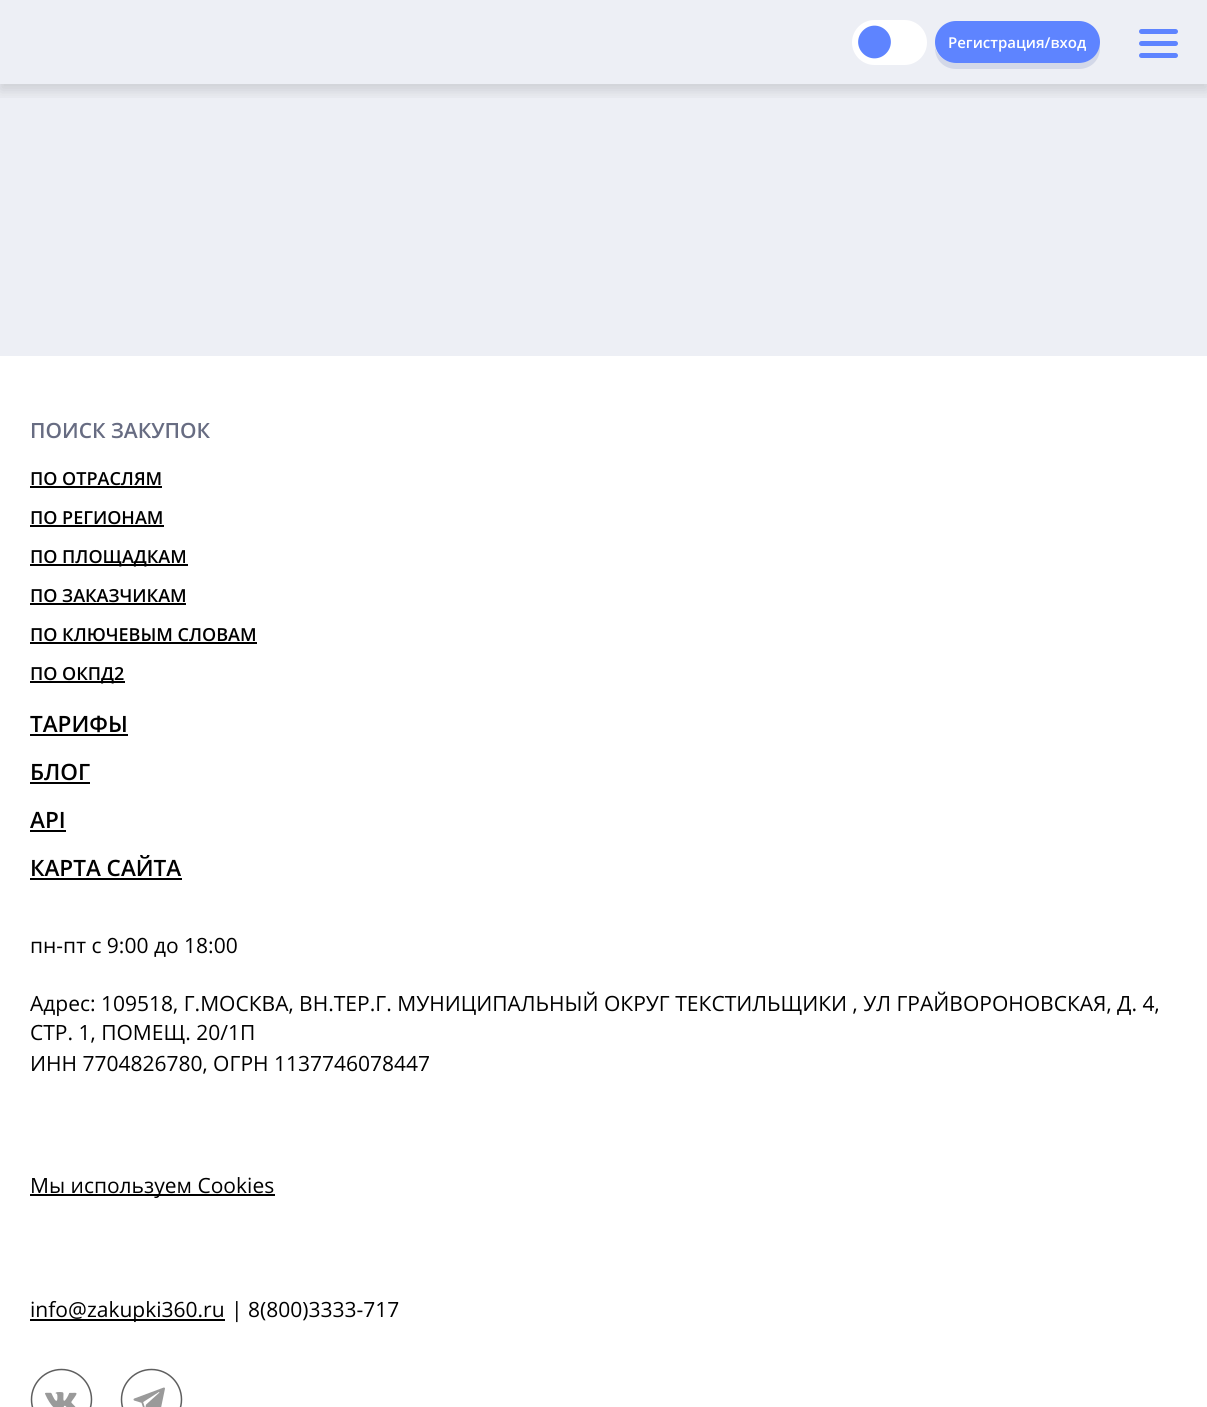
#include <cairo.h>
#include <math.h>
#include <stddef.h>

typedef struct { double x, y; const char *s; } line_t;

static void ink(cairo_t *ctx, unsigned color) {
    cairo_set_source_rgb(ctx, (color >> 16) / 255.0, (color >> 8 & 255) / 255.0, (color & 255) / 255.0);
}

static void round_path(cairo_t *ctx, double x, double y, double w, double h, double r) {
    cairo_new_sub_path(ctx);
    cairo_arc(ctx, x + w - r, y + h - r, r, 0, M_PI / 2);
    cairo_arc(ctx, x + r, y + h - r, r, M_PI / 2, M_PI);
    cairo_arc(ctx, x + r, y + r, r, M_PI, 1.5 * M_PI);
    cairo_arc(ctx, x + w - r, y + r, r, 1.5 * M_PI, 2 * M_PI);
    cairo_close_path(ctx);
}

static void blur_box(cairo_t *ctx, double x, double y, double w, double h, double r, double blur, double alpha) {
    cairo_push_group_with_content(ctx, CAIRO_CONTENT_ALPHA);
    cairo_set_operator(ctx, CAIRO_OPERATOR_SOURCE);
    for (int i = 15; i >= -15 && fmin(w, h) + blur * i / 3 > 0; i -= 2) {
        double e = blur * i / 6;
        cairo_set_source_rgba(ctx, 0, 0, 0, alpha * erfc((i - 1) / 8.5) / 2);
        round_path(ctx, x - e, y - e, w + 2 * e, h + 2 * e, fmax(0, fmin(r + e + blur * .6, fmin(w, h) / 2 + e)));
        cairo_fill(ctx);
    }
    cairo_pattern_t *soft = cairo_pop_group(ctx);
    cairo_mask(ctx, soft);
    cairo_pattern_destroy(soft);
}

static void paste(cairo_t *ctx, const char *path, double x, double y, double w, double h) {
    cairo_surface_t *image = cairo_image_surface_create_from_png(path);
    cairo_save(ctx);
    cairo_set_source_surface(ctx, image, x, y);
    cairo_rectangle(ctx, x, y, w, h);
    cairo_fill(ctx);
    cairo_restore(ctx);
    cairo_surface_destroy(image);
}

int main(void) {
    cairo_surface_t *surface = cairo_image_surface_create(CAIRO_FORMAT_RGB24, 1207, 1407);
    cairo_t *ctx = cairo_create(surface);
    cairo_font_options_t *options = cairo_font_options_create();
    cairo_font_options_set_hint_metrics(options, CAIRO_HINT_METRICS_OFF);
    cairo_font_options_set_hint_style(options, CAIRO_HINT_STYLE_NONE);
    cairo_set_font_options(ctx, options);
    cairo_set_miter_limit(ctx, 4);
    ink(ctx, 0xEDEFF5);
    cairo_paint(ctx);
    cairo_save(ctx);
    cairo_rectangle(ctx, 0, 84, 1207, 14);
    cairo_clip(ctx);
    ink(ctx, 0x000000);
    blur_box(ctx, 0, 6, 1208, 84, 0, 7.5, 0.15);
    cairo_restore(ctx);
    ink(ctx, 0xFFFFFF);
    round_path(ctx, 852, 20, 75, 45, 22.5);
    cairo_fill(ctx);
    ink(ctx, 0x5E84FF);
    cairo_new_path(ctx);
    cairo_move_to(ctx, 863, 30.5);
    cairo_curve_to(ctx, 869.5, 24, 879.5, 24, 886, 30.5);
    cairo_curve_to(ctx, 892.5, 37, 892.5, 47, 886, 53.5);
    cairo_curve_to(ctx, 879.5, 60, 869.5, 60, 863, 53.5);
    cairo_curve_to(ctx, 856.5, 47, 856.5, 37, 863, 30.5);
    cairo_close_path(ctx);
    cairo_fill(ctx);
    ink(ctx, 0xD3D8E8);
    cairo_new_path(ctx);
    cairo_move_to(ctx, 935, 47);
    cairo_line_to(ctx, 935, 48);
    cairo_curve_to(ctx, 935, 60, 944, 69, 956, 69);
    cairo_line_to(ctx, 1079, 69);
    cairo_curve_to(ctx, 1091, 69, 1100, 60, 1100, 48);
    cairo_line_to(ctx, 1099, 43);
    cairo_curve_to(ctx, 1099, 54, 1090, 63, 1078, 63);
    cairo_line_to(ctx, 956, 63);
    cairo_curve_to(ctx, 946, 63, 937, 56, 935, 47);
    cairo_close_path(ctx);
    cairo_fill(ctx);
    ink(ctx, 0x5E84FF);
    round_path(ctx, 935, 21, 165, 42, 21);
    cairo_fill(ctx);
    cairo_select_font_face(ctx, "Open Sans SemiBold", CAIRO_FONT_SLANT_NORMAL, CAIRO_FONT_WEIGHT_NORMAL);
    cairo_set_font_size(ctx, 15);
    ink(ctx, 0xFFFFFF);
    cairo_move_to(ctx, 948, 48);
    cairo_show_text(ctx, "Регистрация/вход");
    ink(ctx, 0x5E84FF);
    round_path(ctx, 1139, 29, 39, 5, 2.5);
    cairo_fill(ctx);
    round_path(ctx, 1139, 41, 39, 5, 2.5);
    cairo_fill(ctx);
    round_path(ctx, 1139, 53, 39, 5, 2.5);
    cairo_fill(ctx);
    ink(ctx, 0xFFFFFF);
    cairo_rectangle(ctx, 0, 356, 1207, 1051);
    cairo_fill(ctx);
    cairo_set_font_size(ctx, 21);
    ink(ctx, 0x676C82);
    cairo_move_to(ctx, 30, 438);
    cairo_show_text(ctx, "ПОИСК ЗАКУПОК");
    cairo_set_font_size(ctx, 18);
    ink(ctx, 0x000000);
    cairo_move_to(ctx, 30, 485);
    cairo_show_text(ctx, "ПО ОТРАСЛЯМ");
    cairo_rectangle(ctx, 30, 486, 132, 2);
    cairo_fill(ctx);
    cairo_move_to(ctx, 30, 524);
    cairo_show_text(ctx, "ПО РЕГИОНАМ");
    cairo_rectangle(ctx, 30, 525, 134, 2);
    cairo_fill(ctx);
    cairo_rectangle(ctx, 30, 564, 158, 2);
    cairo_fill(ctx);
    cairo_move_to(ctx, 30, 563);
    cairo_show_text(ctx, "ПО ПЛОЩАДКАМ");
    cairo_move_to(ctx, 30, 602);
    cairo_show_text(ctx, "ПО ЗАКАЗЧИКАМ");
    cairo_rectangle(ctx, 30, 603, 156, 2);
    cairo_fill(ctx);
    cairo_move_to(ctx, 30, 641);
    cairo_show_text(ctx, "ПО КЛЮЧЕВЫМ СЛОВАМ");
    cairo_rectangle(ctx, 30, 642, 227, 2);
    cairo_fill(ctx);
    cairo_rectangle(ctx, 30, 681, 95, 2);
    cairo_fill(ctx);
    cairo_move_to(ctx, 30, 680);
    cairo_show_text(ctx, "ПО ОКПД2");
    cairo_set_font_size(ctx, 22.5);
    cairo_move_to(ctx, 30, 732);
    cairo_show_text(ctx, "ТАРИФЫ");
    cairo_rectangle(ctx, 30, 734, 98, 2);
    cairo_fill(ctx);
    cairo_move_to(ctx, 30, 780);
    cairo_show_text(ctx, "БЛОГ");
    cairo_rectangle(ctx, 30, 782, 60, 2);
    cairo_fill(ctx);
    cairo_move_to(ctx, 30, 828);
    cairo_show_text(ctx, "API");
    cairo_rectangle(ctx, 30, 830, 36, 2);
    cairo_fill(ctx);
    cairo_move_to(ctx, 30, 876);
    cairo_show_text(ctx, "КАРТА САЙТА");
    cairo_rectangle(ctx, 30, 878, 152, 2);
    cairo_fill(ctx);
    cairo_select_font_face(ctx, "Open Sans", CAIRO_FONT_SLANT_NORMAL, CAIRO_FONT_WEIGHT_NORMAL);
    cairo_set_font_size(ctx, 21);
    {
        static const line_t items[] = {
            {30, 953, "пн-пт с 9:00 до 18:00"},
            {30, 1011, "Адрес: 109518, Г.МОСКВА, ВН.ТЕР.Г. МУНИЦИПАЛЬНЫЙ ОКРУГ ТЕКСТИЛЬЩИКИ , УЛ ГРАЙВОРОНОВСКАЯ, Д. 4,"},
            {30, 1040, "СТР. 1, ПОМЕЩ. 20/1П"},
            {30, 1071, "ИНН 7704826780, ОГРН 1137746078447"},
        };
        for (size_t i = 0; i < sizeof items / sizeof *items; i++) {
            cairo_move_to(ctx, items[i].x, items[i].y);
            cairo_show_text(ctx, items[i].s);
        }
    }
    cairo_rectangle(ctx, 30, 1194, 245, 2);
    cairo_fill(ctx);
    cairo_move_to(ctx, 30, 1193);
    cairo_show_text(ctx, "Мы используем Cookies");
    cairo_rectangle(ctx, 30, 1319, 195, 2);
    cairo_fill(ctx);
    {
        static const line_t items[] = {
            {30, 1317, "info@zakupki360.ru"},
            {231, 1317, "|"},
            {248, 1317, "8(800)3333-717"},
        };
        for (size_t i = 0; i < sizeof items / sizeof *items; i++) {
            cairo_move_to(ctx, items[i].x, items[i].y);
            cairo_show_text(ctx, items[i].s);
        }
    }
    paste(ctx, "media/1.png", 30, 1368, 63, 39);
    paste(ctx, "media/2.png", 120, 1368, 63, 39);
    cairo_surface_write_to_png(surface, "image.png");
    cairo_font_options_destroy(options);
    cairo_destroy(ctx);
    cairo_surface_destroy(surface);
    return 0;
}
